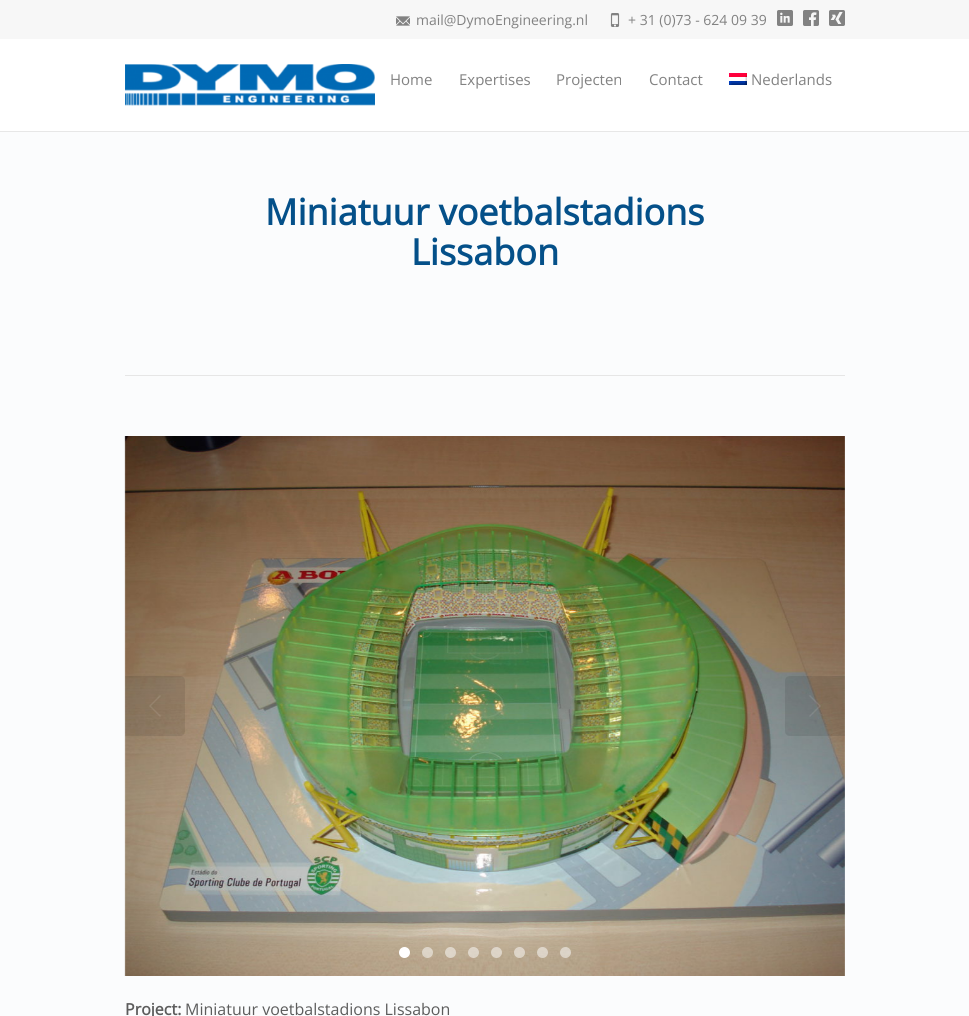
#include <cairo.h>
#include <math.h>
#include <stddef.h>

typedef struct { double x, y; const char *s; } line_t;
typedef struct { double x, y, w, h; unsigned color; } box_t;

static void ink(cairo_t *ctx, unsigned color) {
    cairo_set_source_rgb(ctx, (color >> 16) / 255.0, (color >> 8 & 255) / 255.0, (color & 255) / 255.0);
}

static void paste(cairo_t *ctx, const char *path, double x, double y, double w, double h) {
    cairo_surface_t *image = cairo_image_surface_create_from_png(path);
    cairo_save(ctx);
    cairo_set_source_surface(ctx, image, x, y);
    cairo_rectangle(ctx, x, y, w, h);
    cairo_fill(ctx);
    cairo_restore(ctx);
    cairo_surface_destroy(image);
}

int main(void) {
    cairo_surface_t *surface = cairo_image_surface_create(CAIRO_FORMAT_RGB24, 969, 1016);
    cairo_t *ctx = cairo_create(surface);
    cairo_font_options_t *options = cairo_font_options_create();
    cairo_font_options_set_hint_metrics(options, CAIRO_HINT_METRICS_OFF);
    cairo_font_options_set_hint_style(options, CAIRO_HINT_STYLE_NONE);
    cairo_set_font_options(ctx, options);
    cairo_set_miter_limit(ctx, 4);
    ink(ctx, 0xFBFCFD);
    cairo_paint(ctx);
    {
        static const box_t items[] = {
            {0, 39, 969, 92, 0xFFFFFF},
            {0, 131, 969, 1, 0xE7E7E7},
            {0, 0, 969, 39, 0xF7F7F7},
        };
        for (size_t i = 0; i < sizeof items / sizeof *items; i++) {
            ink(ctx, items[i].color);
            cairo_rectangle(ctx, items[i].x, items[i].y, items[i].w, items[i].h);
            cairo_fill(ctx);
        }
    }
    paste(ctx, "media/1.png", 396, 16, 14, 10);
    cairo_select_font_face(ctx, "Open Sans", CAIRO_FONT_SLANT_NORMAL, CAIRO_FONT_WEIGHT_NORMAL);
    cairo_set_font_size(ctx, 14);
    ink(ctx, 0x828282);
    cairo_move_to(ctx, 416, 25);
    cairo_show_text(ctx, "mail@DymoEngineering.nl");
    paste(ctx, "media/2.png", 610, 13, 10, 14);
    cairo_move_to(ctx, 628, 25);
    cairo_show_text(ctx, "+ 31 (0)73 - 624 09 39");
    paste(ctx, "media/3.png", 777, 10, 16, 16);
    paste(ctx, "media/4.png", 803, 10, 16, 16);
    paste(ctx, "media/5.png", 829, 10, 16, 16);
    paste(ctx, "media/6.png", 125, 64, 250, 42);
    cairo_set_font_size(ctx, 15);
    {
        static const line_t items[] = {
            {390, 85, "Home"},
            {459, 85, "Expertises"},
            {556, 85, "Projecten"},
            {649, 85, "Contact"},
        };
        for (size_t i = 0; i < sizeof items / sizeof *items; i++) {
            cairo_move_to(ctx, items[i].x, items[i].y);
            cairo_show_text(ctx, items[i].s);
        }
    }
    paste(ctx, "media/7.png", 729, 73, 18, 12);
    cairo_move_to(ctx, 751, 85);
    cairo_show_text(ctx, "Nederlands");
    ink(ctx, 0xE6E6E6);
    cairo_rectangle(ctx, 125, 375, 720, 1);
    cairo_fill(ctx);
    cairo_select_font_face(ctx, "Open Sans", CAIRO_FONT_SLANT_NORMAL, CAIRO_FONT_WEIGHT_BOLD);
    cairo_set_font_size(ctx, 36);
    ink(ctx, 0x045089);
    cairo_move_to(ctx, 265, 225);
    cairo_show_text(ctx, "Miniatuur voetbalstadions");
    cairo_move_to(ctx, 411, 265);
    cairo_show_text(ctx, "Lissabon");
    paste(ctx, "media/8.png", 124, 436, 721, 540);
    cairo_set_source_rgba(ctx, 0.067, 0.067, 0.067, 0.1);
    cairo_new_path(ctx);
    cairo_move_to(ctx, 125, 676);
    cairo_line_to(ctx, 180, 676);
    cairo_curve_to(ctx, 183, 676, 185, 678, 185, 681);
    cairo_line_to(ctx, 185, 731);
    cairo_curve_to(ctx, 185, 734, 183, 736, 180, 736);
    cairo_line_to(ctx, 125, 736);
    cairo_close_path(ctx);
    cairo_fill(ctx);
    cairo_set_source_rgba(ctx, 1, 1, 1, 0.1);
    cairo_new_path(ctx);
    cairo_move_to(ctx, 160, 717);
    cairo_line_to(ctx, 161, 716);
    cairo_line_to(ctx, 151, 706);
    cairo_line_to(ctx, 161, 696);
    cairo_line_to(ctx, 160, 695);
    cairo_line_to(ctx, 149, 706);
    cairo_close_path(ctx);
    cairo_fill(ctx);
    cairo_set_source_rgba(ctx, 0.067, 0.067, 0.067, 0.1);
    cairo_new_path(ctx);
    cairo_move_to(ctx, 790, 676);
    cairo_line_to(ctx, 845, 676);
    cairo_line_to(ctx, 845, 736);
    cairo_line_to(ctx, 790, 736);
    cairo_curve_to(ctx, 787, 736, 785, 734, 785, 731);
    cairo_line_to(ctx, 785, 681);
    cairo_curve_to(ctx, 785, 678, 787, 676, 790, 676);
    cairo_close_path(ctx);
    cairo_fill(ctx);
    cairo_set_source_rgba(ctx, 1, 1, 1, 0.1);
    cairo_new_path(ctx);
    cairo_move_to(ctx, 809, 696);
    cairo_line_to(ctx, 819, 706);
    cairo_line_to(ctx, 809, 716);
    cairo_line_to(ctx, 810, 717);
    cairo_line_to(ctx, 821, 706);
    cairo_line_to(ctx, 810, 695);
    cairo_close_path(ctx);
    cairo_fill(ctx);
    ink(ctx, 0xFFFFFF);
    cairo_arc(ctx, 404.5, 952.5, 5.5, 0, 2 * M_PI);
    cairo_fill(ctx);
    cairo_set_source_rgba(ctx, 1, 1, 1, 0.5);
    cairo_arc(ctx, 427.5, 952.5, 5.5, 0, 2 * M_PI);
    cairo_fill(ctx);
    cairo_arc(ctx, 450.5, 952.5, 5.5, 0, 2 * M_PI);
    cairo_fill(ctx);
    cairo_arc(ctx, 473.5, 952.5, 5.5, 0, 2 * M_PI);
    cairo_fill(ctx);
    cairo_arc(ctx, 496.5, 952.5, 5.5, 0, 2 * M_PI);
    cairo_fill(ctx);
    cairo_arc(ctx, 519.5, 952.5, 5.5, 0, 2 * M_PI);
    cairo_fill(ctx);
    cairo_arc(ctx, 542.5, 952.5, 5.5, 0, 2 * M_PI);
    cairo_fill(ctx);
    cairo_arc(ctx, 565.5, 952.5, 5.5, 0, 2 * M_PI);
    cairo_fill(ctx);
    cairo_set_font_size(ctx, 16);
    ink(ctx, 0x5C5C5C);
    cairo_move_to(ctx, 125, 1015);
    cairo_show_text(ctx, "Project:");
    cairo_select_font_face(ctx, "Open Sans", CAIRO_FONT_SLANT_NORMAL, CAIRO_FONT_WEIGHT_NORMAL);
    cairo_move_to(ctx, 185, 1015);
    cairo_show_text(ctx, "Miniatuur voetbalstadions Lissabon");
    cairo_surface_write_to_png(surface, "image.png");
    cairo_font_options_destroy(options);
    cairo_destroy(ctx);
    cairo_surface_destroy(surface);
    return 0;
}
